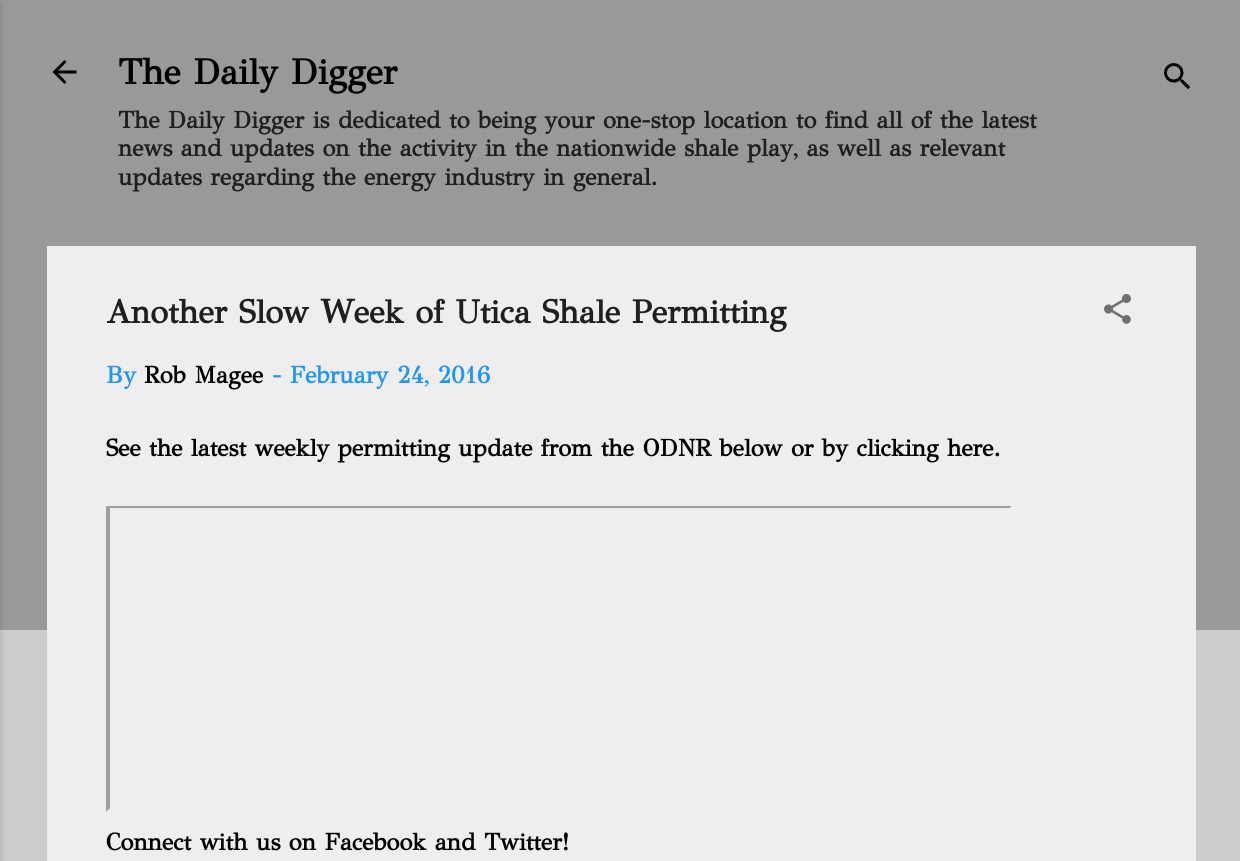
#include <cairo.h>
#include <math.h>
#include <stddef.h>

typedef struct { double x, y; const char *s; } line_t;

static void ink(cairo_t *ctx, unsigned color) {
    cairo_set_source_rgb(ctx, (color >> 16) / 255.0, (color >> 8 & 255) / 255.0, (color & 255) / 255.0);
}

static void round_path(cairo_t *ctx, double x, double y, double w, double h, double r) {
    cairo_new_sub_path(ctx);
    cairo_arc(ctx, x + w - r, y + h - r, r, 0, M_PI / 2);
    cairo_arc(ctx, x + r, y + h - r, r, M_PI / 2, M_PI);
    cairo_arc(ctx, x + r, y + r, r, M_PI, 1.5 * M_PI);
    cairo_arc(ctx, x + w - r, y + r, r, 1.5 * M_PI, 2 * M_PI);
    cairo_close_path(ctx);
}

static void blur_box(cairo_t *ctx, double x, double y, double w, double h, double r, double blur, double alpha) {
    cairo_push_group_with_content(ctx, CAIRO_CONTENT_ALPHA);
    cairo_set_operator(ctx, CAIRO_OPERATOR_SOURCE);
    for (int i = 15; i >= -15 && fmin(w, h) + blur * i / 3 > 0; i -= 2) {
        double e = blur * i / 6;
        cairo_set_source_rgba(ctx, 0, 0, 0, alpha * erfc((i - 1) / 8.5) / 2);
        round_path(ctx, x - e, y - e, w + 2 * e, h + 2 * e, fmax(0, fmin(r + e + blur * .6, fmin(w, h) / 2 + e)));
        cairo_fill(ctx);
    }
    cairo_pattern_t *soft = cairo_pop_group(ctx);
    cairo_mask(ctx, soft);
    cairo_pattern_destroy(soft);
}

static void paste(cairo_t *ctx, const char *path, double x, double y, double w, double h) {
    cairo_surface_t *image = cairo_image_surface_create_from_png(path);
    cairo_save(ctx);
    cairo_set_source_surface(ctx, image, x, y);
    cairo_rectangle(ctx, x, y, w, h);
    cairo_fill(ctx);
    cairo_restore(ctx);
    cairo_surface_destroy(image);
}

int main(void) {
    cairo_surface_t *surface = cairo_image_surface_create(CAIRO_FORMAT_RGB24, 1240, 861);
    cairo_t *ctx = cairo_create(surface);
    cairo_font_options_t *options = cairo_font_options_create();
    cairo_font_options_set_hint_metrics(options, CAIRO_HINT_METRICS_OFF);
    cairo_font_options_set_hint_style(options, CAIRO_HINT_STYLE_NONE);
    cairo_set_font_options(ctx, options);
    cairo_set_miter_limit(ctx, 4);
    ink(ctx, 0xCCCCCC);
    cairo_paint(ctx);
    ink(ctx, 0x999999);
    cairo_rectangle(ctx, 0, 0, 1240, 630);
    cairo_fill(ctx);
    ink(ctx, 0x000000);
    blur_box(ctx, -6, 2, 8, 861, 0, 2, 0.1);
    paste(ctx, "media/1.png", 52, 60, 25, 24);
    cairo_select_font_face(ctx, "GFS Didot", CAIRO_FONT_SLANT_NORMAL, CAIRO_FONT_WEIGHT_BOLD);
    cairo_set_font_size(ctx, 36);
    ink(ctx, 0x000000);
    cairo_move_to(ctx, 118, 84);
    cairo_show_text(ctx, "The Daily Digger");
    cairo_set_font_size(ctx, 24);
    ink(ctx, 0x1F1F1F);
    {
        static const line_t items[] = {
            {118, 128, "The Daily Digger is dedicated to being your one-stop location to find all of the latest"},
            {118, 156, "news and updates on the activity in the nationwide shale play, as well as relevant"},
            {118, 185, "updates regarding the energy industry in general."},
        };
        for (size_t i = 0; i < sizeof items / sizeof *items; i++) {
            cairo_move_to(ctx, items[i].x, items[i].y);
            cairo_show_text(ctx, items[i].s);
        }
    }
    paste(ctx, "media/2.png", 1164, 63, 26, 27);
    ink(ctx, 0xEEEEEE);
    cairo_rectangle(ctx, 47, 246, 1149, 615);
    cairo_fill(ctx);
    cairo_set_font_size(ctx, 33);
    ink(ctx, 0x1F1F1F);
    cairo_move_to(ctx, 106, 323);
    cairo_show_text(ctx, "Another Slow Week of Utica Shale Permitting");
    paste(ctx, "media/3.png", 1104, 294, 27, 30);
    cairo_set_font_size(ctx, 24);
    ink(ctx, 0x2196F3);
    cairo_move_to(ctx, 106, 383);
    cairo_show_text(ctx, "By");
    ink(ctx, 0x000000);
    cairo_move_to(ctx, 144, 383);
    cairo_show_text(ctx, "Rob Magee");
    ink(ctx, 0x2196F3);
    cairo_move_to(ctx, 272, 383);
    cairo_show_text(ctx, "- February 24, 2016");
    ink(ctx, 0x000000);
    cairo_move_to(ctx, 106, 456);
    cairo_show_text(ctx, "See the latest weekly permitting update from the ODNR below or by clicking here.");
    ink(ctx, 0x9F9F9F);
    cairo_new_path(ctx);
    cairo_move_to(ctx, 106, 506);
    cairo_line_to(ctx, 1012, 506);
    cairo_line_to(ctx, 1010, 508);
    cairo_line_to(ctx, 110, 508);
    cairo_close_path(ctx);
    cairo_fill(ctx);
    cairo_new_path(ctx);
    cairo_move_to(ctx, 106, 812);
    cairo_line_to(ctx, 106, 506);
    cairo_line_to(ctx, 110, 508);
    cairo_line_to(ctx, 110, 808);
    cairo_close_path(ctx);
    cairo_fill(ctx);
    ink(ctx, 0xEEEEEE);
    cairo_new_path(ctx);
    cairo_move_to(ctx, 1012, 506);
    cairo_line_to(ctx, 1012, 812);
    cairo_line_to(ctx, 1010, 808);
    cairo_line_to(ctx, 1010, 508);
    cairo_close_path(ctx);
    cairo_fill(ctx);
    ink(ctx, 0x000000);
    cairo_move_to(ctx, 106, 850);
    cairo_show_text(ctx, "Connect with us on Facebook and Twitter!");
    cairo_surface_write_to_png(surface, "image.png");
    cairo_font_options_destroy(options);
    cairo_destroy(ctx);
    cairo_surface_destroy(surface);
    return 0;
}
